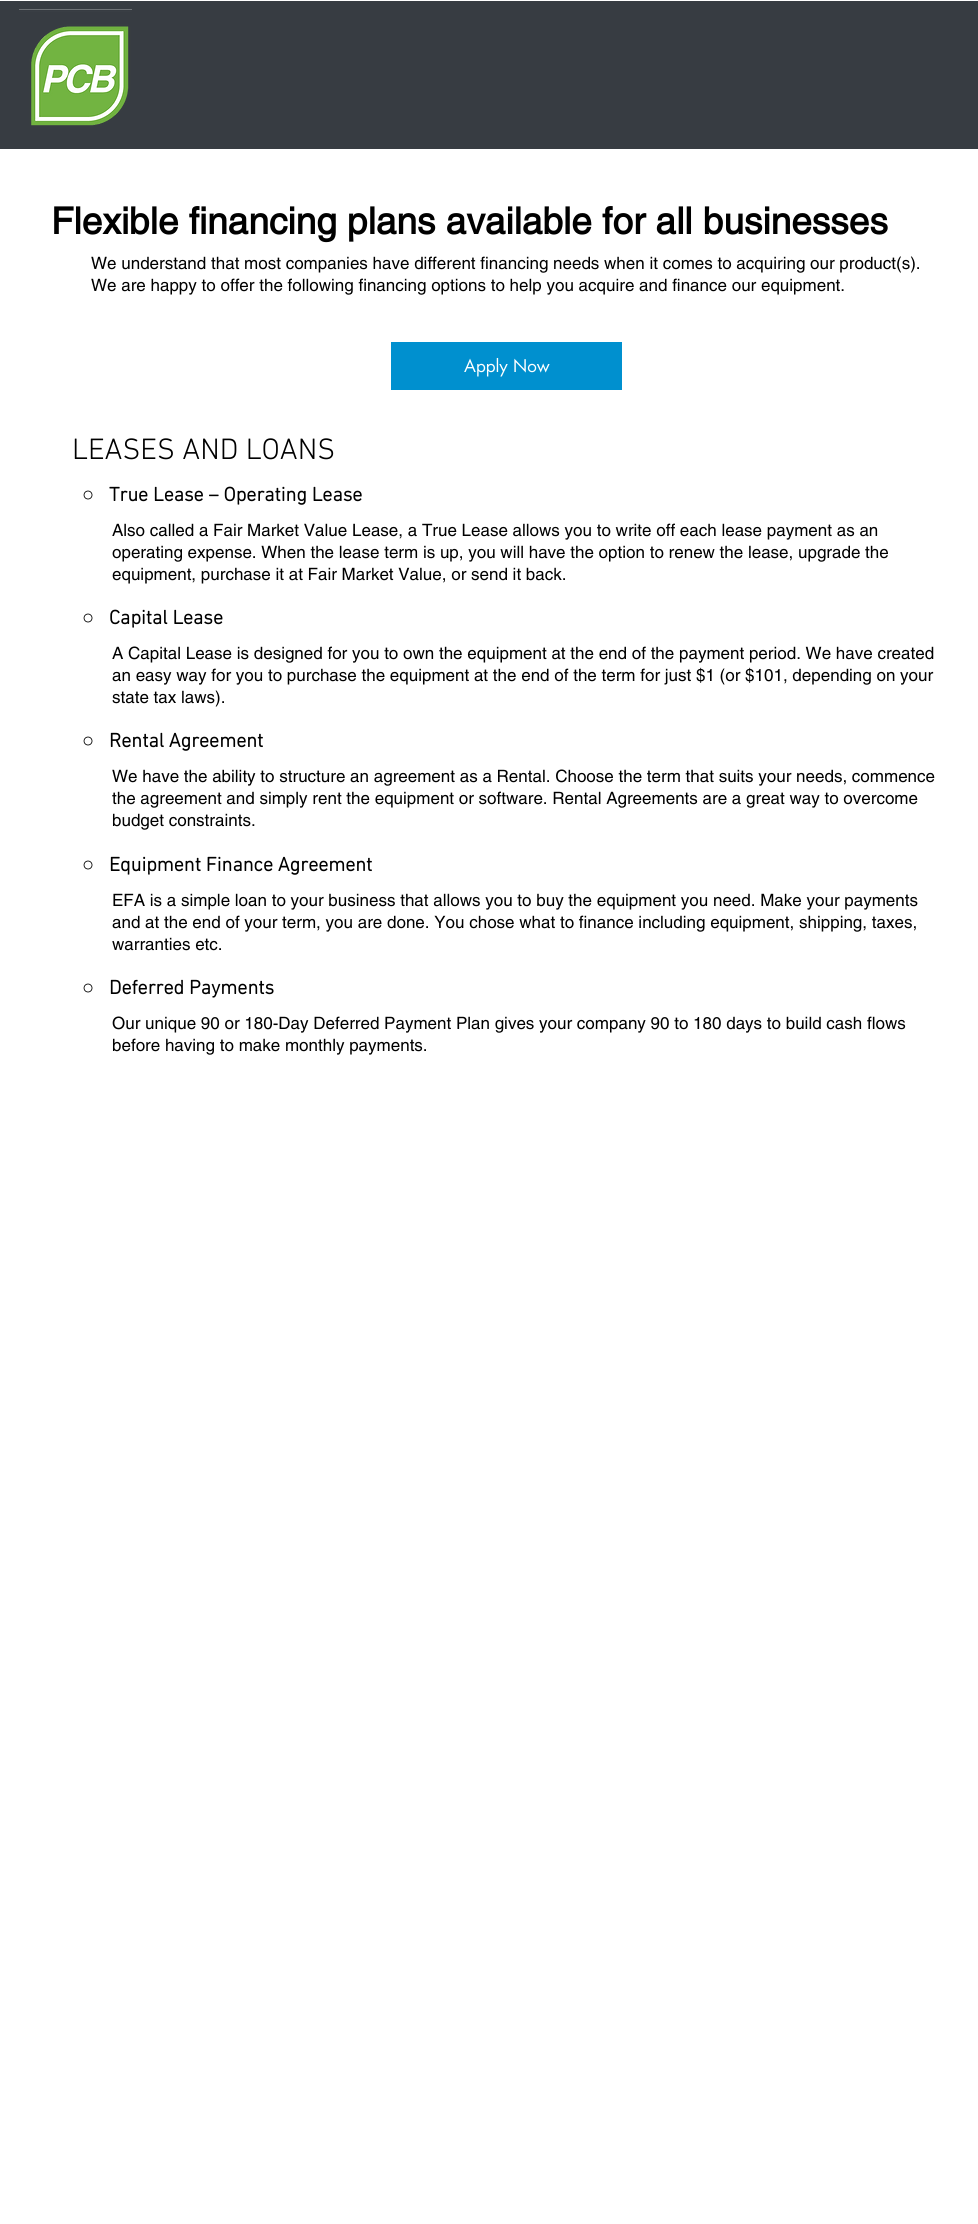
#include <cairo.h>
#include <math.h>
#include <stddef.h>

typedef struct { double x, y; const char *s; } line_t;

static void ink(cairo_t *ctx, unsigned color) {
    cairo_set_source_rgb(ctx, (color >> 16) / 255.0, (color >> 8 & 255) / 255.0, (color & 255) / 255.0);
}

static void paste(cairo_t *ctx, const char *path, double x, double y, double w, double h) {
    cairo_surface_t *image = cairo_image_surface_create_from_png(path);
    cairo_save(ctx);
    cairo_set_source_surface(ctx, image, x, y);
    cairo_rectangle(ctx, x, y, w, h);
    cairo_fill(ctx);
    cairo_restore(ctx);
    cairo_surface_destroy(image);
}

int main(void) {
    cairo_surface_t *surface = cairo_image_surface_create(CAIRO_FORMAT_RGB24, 978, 2224);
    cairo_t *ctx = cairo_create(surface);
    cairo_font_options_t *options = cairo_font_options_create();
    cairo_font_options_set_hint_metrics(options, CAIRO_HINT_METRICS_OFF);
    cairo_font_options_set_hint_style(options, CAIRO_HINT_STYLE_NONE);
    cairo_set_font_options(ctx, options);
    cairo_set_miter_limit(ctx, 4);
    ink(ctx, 0xFFFFFF);
    cairo_paint(ctx);
    ink(ctx, 0x373C42);
    cairo_rectangle(ctx, 0, 1, 978, 148);
    cairo_fill(ctx);
    paste(ctx, "media/1.png", 19, 9, 113, 117);
    cairo_select_font_face(ctx, "helvetica", CAIRO_FONT_SLANT_NORMAL, CAIRO_FONT_WEIGHT_BOLD);
    cairo_set_font_size(ctx, 37);
    ink(ctx, 0x000000);
    cairo_move_to(ctx, 51, 234);
    cairo_show_text(ctx, "Flexible financing plans available for all businesses");
    cairo_select_font_face(ctx, "helvetica", CAIRO_FONT_SLANT_NORMAL, CAIRO_FONT_WEIGHT_NORMAL);
    cairo_set_font_size(ctx, 17);
    cairo_move_to(ctx, 91, 269);
    cairo_show_text(ctx, "We understand that most companies have different financing needs when it comes to acquiring our product(s).");
    cairo_move_to(ctx, 91, 291);
    cairo_show_text(ctx, "We are happy to offer the following financing options to help you acquire and finance our equipment.");
    ink(ctx, 0x0090CF);
    cairo_rectangle(ctx, 391, 342, 231, 48);
    cairo_fill(ctx);
    cairo_select_font_face(ctx, "futura", CAIRO_FONT_SLANT_NORMAL, CAIRO_FONT_WEIGHT_NORMAL);
    ink(ctx, 0xFFFFFF);
    cairo_move_to(ctx, 464, 372);
    cairo_show_text(ctx, "Apply Now");
    cairo_select_font_face(ctx, "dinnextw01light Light", CAIRO_FONT_SLANT_NORMAL, CAIRO_FONT_WEIGHT_NORMAL);
    cairo_set_font_size(ctx, 30);
    ink(ctx, 0x000000);
    cairo_move_to(ctx, 72, 459);
    cairo_show_text(ctx, "LEASES AND LOANS");
    cairo_select_font_face(ctx, "Liberation Sans", CAIRO_FONT_SLANT_NORMAL, CAIRO_FONT_WEIGHT_BOLD);
    cairo_set_font_size(ctx, 20);
    cairo_move_to(ctx, 82, 501);
    cairo_show_text(ctx, "○");
    cairo_select_font_face(ctx, "dinnextw01light", CAIRO_FONT_SLANT_NORMAL, CAIRO_FONT_WEIGHT_BOLD);
    cairo_move_to(ctx, 109, 501);
    cairo_show_text(ctx, "True Lease – Operating Lease");
    cairo_select_font_face(ctx, "helvetica", CAIRO_FONT_SLANT_NORMAL, CAIRO_FONT_WEIGHT_NORMAL);
    cairo_set_font_size(ctx, 17);
    {
        static const line_t items[] = {
            {112, 536, "Also called a Fair Market Value Lease, a True Lease allows you to write off each lease payment as an"},
            {112, 558, "operating expense. When the lease term is up, you will have the option to renew the lease, upgrade the"},
            {112, 580, "equipment, purchase it at Fair Market Value, or send it back."},
        };
        for (size_t i = 0; i < sizeof items / sizeof *items; i++) {
            cairo_move_to(ctx, items[i].x, items[i].y);
            cairo_show_text(ctx, items[i].s);
        }
    }
    cairo_select_font_face(ctx, "Liberation Sans", CAIRO_FONT_SLANT_NORMAL, CAIRO_FONT_WEIGHT_BOLD);
    cairo_set_font_size(ctx, 20);
    cairo_move_to(ctx, 82, 624);
    cairo_show_text(ctx, "○");
    cairo_select_font_face(ctx, "dinnextw01light", CAIRO_FONT_SLANT_NORMAL, CAIRO_FONT_WEIGHT_BOLD);
    cairo_move_to(ctx, 109, 624);
    cairo_show_text(ctx, "Capital Lease");
    cairo_select_font_face(ctx, "helvetica", CAIRO_FONT_SLANT_NORMAL, CAIRO_FONT_WEIGHT_NORMAL);
    cairo_set_font_size(ctx, 17);
    {
        static const line_t items[] = {
            {112, 659, "A Capital Lease is designed for you to own the equipment at the end of the payment period. We have created"},
            {112, 681, "an easy way for you to purchase the equipment at the end of the term for just $1 (or $101, depending on your"},
            {112, 703, "state tax laws)."},
        };
        for (size_t i = 0; i < sizeof items / sizeof *items; i++) {
            cairo_move_to(ctx, items[i].x, items[i].y);
            cairo_show_text(ctx, items[i].s);
        }
    }
    cairo_select_font_face(ctx, "Liberation Sans", CAIRO_FONT_SLANT_NORMAL, CAIRO_FONT_WEIGHT_BOLD);
    cairo_set_font_size(ctx, 20);
    cairo_move_to(ctx, 82, 747);
    cairo_show_text(ctx, "○");
    cairo_select_font_face(ctx, "dinnextw01light", CAIRO_FONT_SLANT_NORMAL, CAIRO_FONT_WEIGHT_BOLD);
    cairo_move_to(ctx, 109, 747);
    cairo_show_text(ctx, "Rental Agreement");
    cairo_select_font_face(ctx, "helvetica", CAIRO_FONT_SLANT_NORMAL, CAIRO_FONT_WEIGHT_NORMAL);
    cairo_set_font_size(ctx, 17);
    {
        static const line_t items[] = {
            {112, 782, "We have the ability to structure an agreement as a Rental. Choose the term that suits your needs, commence"},
            {112, 804, "the agreement and simply rent the equipment or software. Rental Agreements are a great way to overcome"},
            {112, 826, "budget constraints."},
        };
        for (size_t i = 0; i < sizeof items / sizeof *items; i++) {
            cairo_move_to(ctx, items[i].x, items[i].y);
            cairo_show_text(ctx, items[i].s);
        }
    }
    cairo_select_font_face(ctx, "Liberation Sans", CAIRO_FONT_SLANT_NORMAL, CAIRO_FONT_WEIGHT_BOLD);
    cairo_set_font_size(ctx, 20);
    cairo_move_to(ctx, 82, 871);
    cairo_show_text(ctx, "○");
    cairo_select_font_face(ctx, "dinnextw01light", CAIRO_FONT_SLANT_NORMAL, CAIRO_FONT_WEIGHT_BOLD);
    cairo_move_to(ctx, 109, 871);
    cairo_show_text(ctx, "Equipment Finance Agreement");
    cairo_select_font_face(ctx, "helvetica", CAIRO_FONT_SLANT_NORMAL, CAIRO_FONT_WEIGHT_NORMAL);
    cairo_set_font_size(ctx, 17);
    {
        static const line_t items[] = {
            {112, 906, "EFA is a simple loan to your business that allows you to buy the equipment you need. Make your payments"},
            {112, 928, "and at the end of your term, you are done. You chose what to finance including equipment, shipping, taxes,"},
            {112, 950, "warranties etc."},
        };
        for (size_t i = 0; i < sizeof items / sizeof *items; i++) {
            cairo_move_to(ctx, items[i].x, items[i].y);
            cairo_show_text(ctx, items[i].s);
        }
    }
    cairo_select_font_face(ctx, "Liberation Sans", CAIRO_FONT_SLANT_NORMAL, CAIRO_FONT_WEIGHT_BOLD);
    cairo_set_font_size(ctx, 20);
    cairo_move_to(ctx, 82, 994);
    cairo_show_text(ctx, "○");
    cairo_select_font_face(ctx, "dinnextw01light", CAIRO_FONT_SLANT_NORMAL, CAIRO_FONT_WEIGHT_BOLD);
    cairo_move_to(ctx, 109, 994);
    cairo_show_text(ctx, "Deferred Payments");
    cairo_select_font_face(ctx, "helvetica", CAIRO_FONT_SLANT_NORMAL, CAIRO_FONT_WEIGHT_NORMAL);
    cairo_set_font_size(ctx, 17);
    cairo_move_to(ctx, 112, 1029);
    cairo_show_text(ctx, "Our unique 90 or 180-Day Deferred Payment Plan gives your company 90 to 180 days to build cash flows");
    cairo_move_to(ctx, 112, 1051);
    cairo_show_text(ctx, "before having to make monthly payments.");
    cairo_surface_write_to_png(surface, "image.png");
    cairo_font_options_destroy(options);
    cairo_destroy(ctx);
    cairo_surface_destroy(surface);
    return 0;
}
